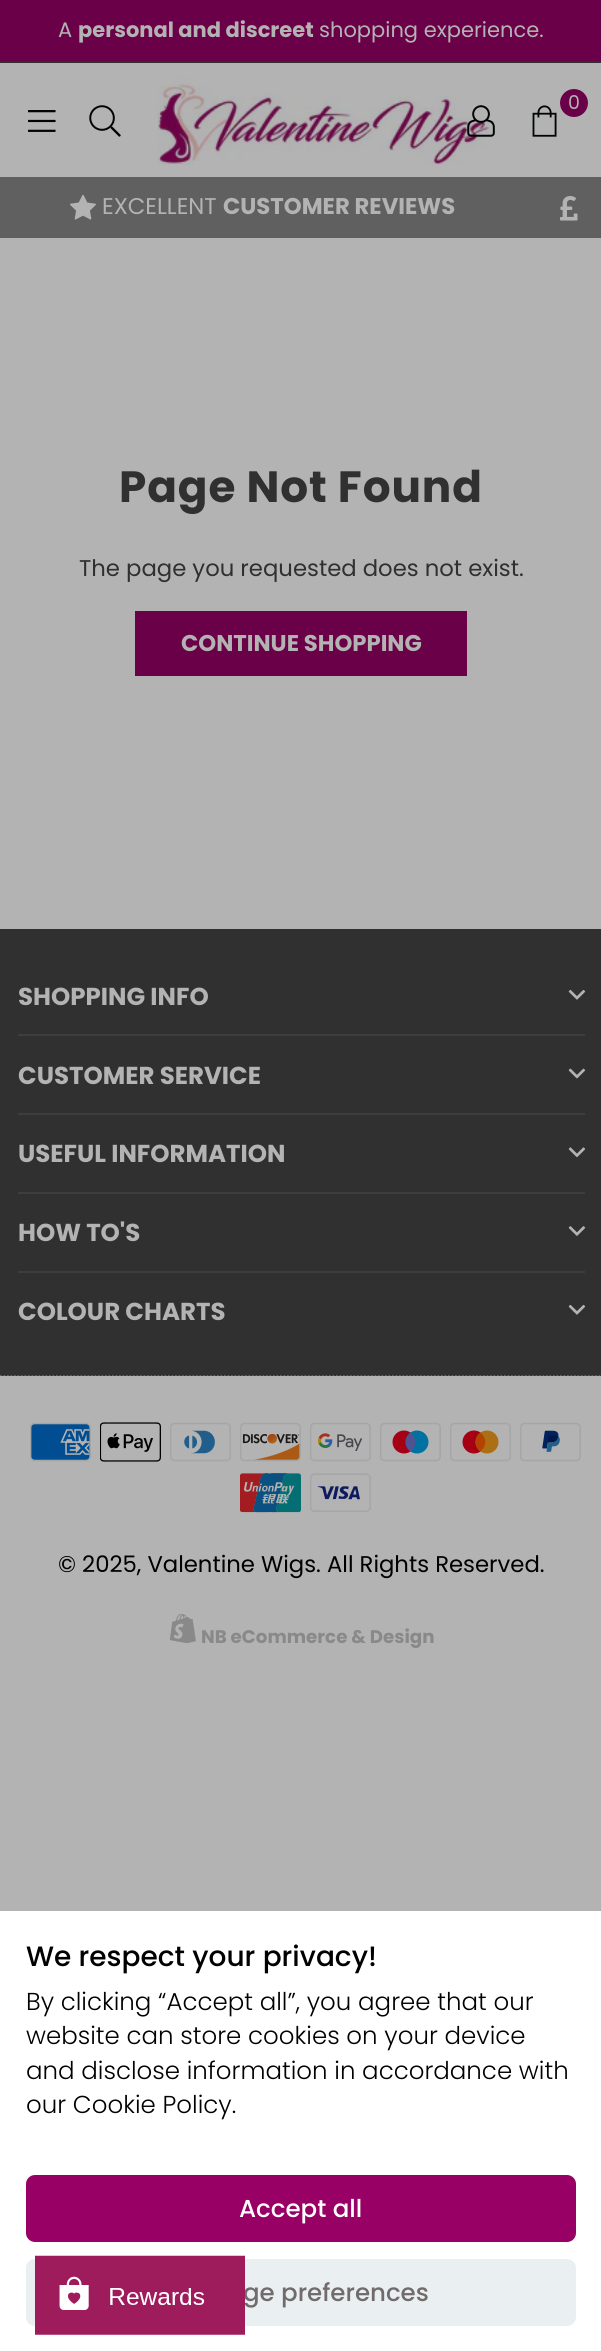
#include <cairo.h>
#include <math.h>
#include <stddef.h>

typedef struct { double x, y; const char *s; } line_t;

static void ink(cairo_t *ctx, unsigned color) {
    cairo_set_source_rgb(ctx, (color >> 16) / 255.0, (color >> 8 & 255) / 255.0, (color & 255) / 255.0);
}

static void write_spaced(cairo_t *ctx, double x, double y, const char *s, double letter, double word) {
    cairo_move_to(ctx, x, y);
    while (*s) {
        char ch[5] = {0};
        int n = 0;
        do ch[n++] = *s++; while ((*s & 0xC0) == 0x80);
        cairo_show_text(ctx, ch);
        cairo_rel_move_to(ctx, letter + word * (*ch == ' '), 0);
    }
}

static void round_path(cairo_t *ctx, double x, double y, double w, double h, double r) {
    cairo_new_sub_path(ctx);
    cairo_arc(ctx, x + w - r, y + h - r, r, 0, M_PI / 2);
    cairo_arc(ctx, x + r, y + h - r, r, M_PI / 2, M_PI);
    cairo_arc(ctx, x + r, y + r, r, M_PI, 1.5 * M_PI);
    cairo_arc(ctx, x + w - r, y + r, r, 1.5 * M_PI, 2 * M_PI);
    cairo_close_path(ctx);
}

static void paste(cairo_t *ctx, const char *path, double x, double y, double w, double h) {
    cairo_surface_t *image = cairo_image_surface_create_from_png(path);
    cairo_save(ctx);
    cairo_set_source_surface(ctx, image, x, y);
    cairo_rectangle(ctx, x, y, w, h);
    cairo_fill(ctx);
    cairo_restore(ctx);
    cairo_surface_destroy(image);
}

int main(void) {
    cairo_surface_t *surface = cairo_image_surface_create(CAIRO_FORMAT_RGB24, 601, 2351);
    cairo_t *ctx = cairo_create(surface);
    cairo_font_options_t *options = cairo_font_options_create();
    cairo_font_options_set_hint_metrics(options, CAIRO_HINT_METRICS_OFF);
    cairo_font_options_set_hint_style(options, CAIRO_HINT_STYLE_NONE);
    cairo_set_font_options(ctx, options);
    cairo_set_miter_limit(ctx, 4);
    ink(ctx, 0xB3B3B3);
    cairo_paint(ctx);
    ink(ctx, 0x6A0047);
    cairo_rectangle(ctx, 0, 0, 601, 61);
    cairo_fill(ctx);
    ink(ctx, 0x303030);
    cairo_rectangle(ctx, 0, 61, 601, 2);
    cairo_fill(ctx);
    cairo_select_font_face(ctx, "Poppins", CAIRO_FONT_SLANT_NORMAL, CAIRO_FONT_WEIGHT_NORMAL);
    cairo_set_font_size(ctx, 21);
    ink(ctx, 0xB3B3B3);
    cairo_move_to(ctx, 58, 37);
    cairo_show_text(ctx, "A");
    cairo_select_font_face(ctx, "Poppins", CAIRO_FONT_SLANT_NORMAL, CAIRO_FONT_WEIGHT_BOLD);
    cairo_move_to(ctx, 78, 37);
    cairo_show_text(ctx, "personal and discreet");
    cairo_select_font_face(ctx, "Poppins", CAIRO_FONT_SLANT_NORMAL, CAIRO_FONT_WEIGHT_NORMAL);
    cairo_move_to(ctx, 319, 37);
    cairo_show_text(ctx, "shopping experience.");
    paste(ctx, "media/1.png", 157, 76, 333, 89);
    ink(ctx, 0x6A0047);
    cairo_arc(ctx, 574, 103, 14, 0, 2 * M_PI);
    cairo_fill(ctx);
    cairo_set_font_size(ctx, 19);
    ink(ctx, 0xB3B3B3);
    cairo_move_to(ctx, 568, 109);
    cairo_show_text(ctx, "0");
    paste(ctx, "media/2.png", 532, 105, 25, 32);
    paste(ctx, "media/3.png", 467, 105, 28, 32);
    paste(ctx, "media/4.png", 28, 110, 28, 22);
    paste(ctx, "media/5.png", 89, 105, 32, 32);
    ink(ctx, 0x606060);
    cairo_rectangle(ctx, 0, 177, 601, 61);
    cairo_fill(ctx);
    paste(ctx, "media/6.png", 70, 194, 26, 26);
    cairo_set_font_size(ctx, 22.75);
    ink(ctx, 0xB3B3B3);
    cairo_move_to(ctx, 102, 214);
    cairo_show_text(ctx, "EXCELLENT");
    cairo_select_font_face(ctx, "Poppins", CAIRO_FONT_SLANT_NORMAL, CAIRO_FONT_WEIGHT_BOLD);
    cairo_move_to(ctx, 223, 214);
    cairo_show_text(ctx, "CUSTOMER REVIEWS");
    paste(ctx, "media/7.png", 560, 196, 18, 25);
    cairo_set_font_size(ctx, 43.75);
    ink(ctx, 0x303030);
    write_spaced(ctx, 119, 502, "Page Not Found", 0.9, 0);
    cairo_select_font_face(ctx, "Poppins", CAIRO_FONT_SLANT_NORMAL, CAIRO_FONT_WEIGHT_NORMAL);
    cairo_set_font_size(ctx, 22.75);
    cairo_move_to(ctx, 79, 576);
    cairo_show_text(ctx, "The page you requested does not exist.");
    ink(ctx, 0x6A0047);
    cairo_rectangle(ctx, 135, 611, 332, 65);
    cairo_fill(ctx);
    cairo_select_font_face(ctx, "Poppins", CAIRO_FONT_SLANT_NORMAL, CAIRO_FONT_WEIGHT_BOLD);
    ink(ctx, 0xB3B3B3);
    cairo_move_to(ctx, 181, 651);
    cairo_show_text(ctx, "CONTINUE SHOPPING");
    ink(ctx, 0x303030);
    cairo_rectangle(ctx, 0, 929, 601, 447);
    cairo_fill(ctx);
    cairo_set_font_size(ctx, 24.5);
    ink(ctx, 0xB3B3B3);
    cairo_move_to(ctx, 18, 1005);
    cairo_show_text(ctx, "SHOPPING INFO");
    paste(ctx, "media/8.png", 568, 989, 18, 11);
    ink(ctx, 0x3D3D3D);
    cairo_rectangle(ctx, 18, 1034, 567, 2);
    cairo_fill(ctx);
    ink(ctx, 0xB3B3B3);
    cairo_move_to(ctx, 18, 1084);
    cairo_show_text(ctx, "CUSTOMER SERVICE");
    paste(ctx, "media/9.png", 568, 1068, 18, 11);
    ink(ctx, 0x3D3D3D);
    cairo_rectangle(ctx, 18, 1113, 567, 2);
    cairo_fill(ctx);
    ink(ctx, 0xB3B3B3);
    cairo_move_to(ctx, 18, 1162);
    cairo_show_text(ctx, "USEFUL INFORMATION");
    paste(ctx, "media/10.png", 568, 1147, 18, 11);
    ink(ctx, 0x3D3D3D);
    cairo_rectangle(ctx, 18, 1192, 567, 2);
    cairo_fill(ctx);
    ink(ctx, 0xB3B3B3);
    cairo_move_to(ctx, 18, 1241);
    cairo_show_text(ctx, "HOW TO'S");
    paste(ctx, "media/11.png", 568, 1226, 18, 10);
    ink(ctx, 0x3D3D3D);
    cairo_rectangle(ctx, 18, 1271, 567, 2);
    cairo_fill(ctx);
    ink(ctx, 0xB3B3B3);
    cairo_move_to(ctx, 18, 1320);
    cairo_show_text(ctx, "COLOUR CHARTS");
    paste(ctx, "media/8.png", 568, 1304, 18, 11);
    cairo_new_path(ctx);
    cairo_move_to(ctx, 0, 1376.5);
    cairo_line_to(ctx, 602, 1376.5);
    cairo_set_line_width(ctx, 1.8);
    cairo_set_dash(ctx, (double[]){1.75, 1.75}, 2, 0);
    cairo_stroke(ctx);
    paste(ctx, "media/12.png", 30, 1422, 61, 40);
    paste(ctx, "media/13.png", 100, 1422, 61, 40);
    paste(ctx, "media/14.png", 170, 1422, 61, 40);
    paste(ctx, "media/15.png", 240, 1422, 61, 40);
    paste(ctx, "media/16.png", 310, 1422, 61, 40);
    paste(ctx, "media/17.png", 380, 1422, 61, 40);
    paste(ctx, "media/18.png", 450, 1422, 61, 40);
    paste(ctx, "media/19.png", 520, 1422, 61, 40);
    paste(ctx, "media/20.png", 240, 1473, 61, 40);
    paste(ctx, "media/21.png", 310, 1473, 61, 39);
    cairo_select_font_face(ctx, "Poppins", CAIRO_FONT_SLANT_NORMAL, CAIRO_FONT_WEIGHT_NORMAL);
    cairo_set_font_size(ctx, 22.75);
    ink(ctx, 0x000000);
    cairo_move_to(ctx, 58, 1572);
    cairo_show_text(ctx, "© 2025, Valentine Wigs. All Rights Reserved.");
    paste(ctx, "media/22.png", 169, 1614, 27, 29);
    cairo_select_font_face(ctx, "Poppins", CAIRO_FONT_SLANT_NORMAL, CAIRO_FONT_WEIGHT_BOLD);
    cairo_set_font_size(ctx, 18.25);
    ink(ctx, 0x898989);
    cairo_move_to(ctx, 201, 1643);
    cairo_show_text(ctx, "NB eCommerce & Design");
    ink(ctx, 0xFFFFFF);
    cairo_rectangle(ctx, 0, 1911, 601, 440);
    cairo_fill(ctx);
    cairo_select_font_face(ctx, "Poppins Medium", CAIRO_FONT_SLANT_NORMAL, CAIRO_FONT_WEIGHT_NORMAL);
    cairo_set_font_size(ctx, 28);
    ink(ctx, 0x000000);
    cairo_move_to(ctx, 26, 1966);
    cairo_show_text(ctx, "We respect your privacy!");
    cairo_select_font_face(ctx, "Poppins Light", CAIRO_FONT_SLANT_NORMAL, CAIRO_FONT_WEIGHT_NORMAL);
    cairo_set_font_size(ctx, 24.5);
    {
        static const line_t items[] = {
            {26, 2010, "By clicking “Accept all”, you agree that our"},
            {26, 2044, "website can store cookies on your device"},
            {26, 2079, "and disclose information in accordance with"},
            {26, 2113, "our Cookie Policy."},
        };
        for (size_t i = 0; i < sizeof items / sizeof *items; i++) {
            cairo_move_to(ctx, items[i].x, items[i].y);
            cairo_show_text(ctx, items[i].s);
        }
    }
    ink(ctx, 0x980065);
    round_path(ctx, 26, 2175, 550, 67, 9);
    cairo_fill(ctx);
    cairo_select_font_face(ctx, "Poppins Medium", CAIRO_FONT_SLANT_NORMAL, CAIRO_FONT_WEIGHT_NORMAL);
    ink(ctx, 0xFFFFFF);
    cairo_move_to(ctx, 239, 2217);
    cairo_show_text(ctx, "Accept all");
    ink(ctx, 0xEAEFF2);
    round_path(ctx, 26, 2259, 550, 67, 9);
    cairo_fill(ctx);
    ink(ctx, 0x726B6B);
    cairo_move_to(ctx, 243, 2301);
    cairo_show_text(ctx, "ge preferences");
    paste(ctx, "media/23.png", 35, 2255, 210, 80);
    cairo_surface_write_to_png(surface, "image.png");
    cairo_font_options_destroy(options);
    cairo_destroy(ctx);
    cairo_surface_destroy(surface);
    return 0;
}
